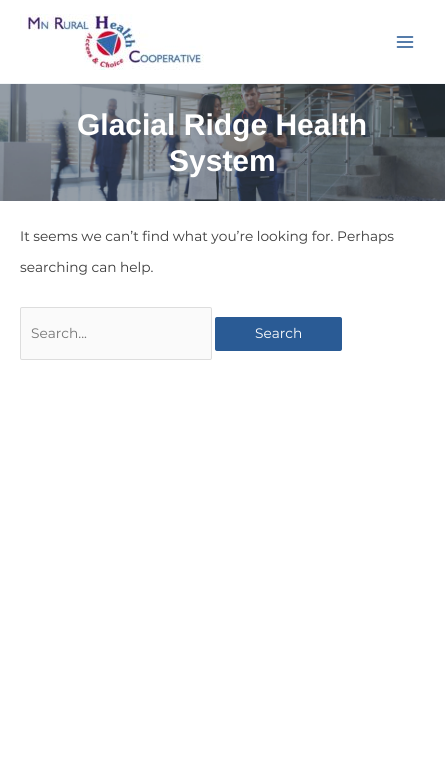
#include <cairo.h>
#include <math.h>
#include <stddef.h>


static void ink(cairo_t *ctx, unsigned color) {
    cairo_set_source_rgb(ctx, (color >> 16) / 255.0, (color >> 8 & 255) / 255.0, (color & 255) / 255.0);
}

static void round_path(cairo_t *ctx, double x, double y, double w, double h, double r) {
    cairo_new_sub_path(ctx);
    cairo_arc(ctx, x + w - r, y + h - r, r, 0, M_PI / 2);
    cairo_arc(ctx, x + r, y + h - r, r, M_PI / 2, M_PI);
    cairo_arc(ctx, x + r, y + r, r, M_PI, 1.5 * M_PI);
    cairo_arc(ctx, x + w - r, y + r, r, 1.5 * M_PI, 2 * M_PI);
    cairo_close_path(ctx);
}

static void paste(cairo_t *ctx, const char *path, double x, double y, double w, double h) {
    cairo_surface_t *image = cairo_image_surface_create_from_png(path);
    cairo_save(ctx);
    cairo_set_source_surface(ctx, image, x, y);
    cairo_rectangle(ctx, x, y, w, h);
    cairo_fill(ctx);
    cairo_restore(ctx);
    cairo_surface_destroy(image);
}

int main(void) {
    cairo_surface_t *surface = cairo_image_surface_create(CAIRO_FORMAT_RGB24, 445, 757);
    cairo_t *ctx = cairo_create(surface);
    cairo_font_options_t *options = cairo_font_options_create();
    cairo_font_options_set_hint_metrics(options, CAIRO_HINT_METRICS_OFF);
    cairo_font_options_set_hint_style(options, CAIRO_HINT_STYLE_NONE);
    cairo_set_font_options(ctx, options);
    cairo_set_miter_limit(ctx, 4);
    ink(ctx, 0xFFFFFF);
    cairo_paint(ctx);
    ink(ctx, 0xF2F5F7);
    cairo_rectangle(ctx, 0, 83, 445, 1);
    cairo_fill(ctx);
    paste(ctx, "media/1.png", 20, 14, 184, 56);
    paste(ctx, "media/2.png", 396, 36, 18, 12);
    paste(ctx, "media/3.png", 0, 84, 445, 117);
    cairo_select_font_face(ctx, "Liberation Sans", CAIRO_FONT_SLANT_NORMAL, CAIRO_FONT_WEIGHT_BOLD);
    cairo_set_font_size(ctx, 30);
    ink(ctx, 0xFFFFFF);
    cairo_move_to(ctx, 77, 135);
    cairo_show_text(ctx, "Glacial Ridge Health");
    cairo_move_to(ctx, 169, 171);
    cairo_show_text(ctx, "System");
    cairo_select_font_face(ctx, "Montserrat Thin", CAIRO_FONT_SLANT_NORMAL, CAIRO_FONT_WEIGHT_NORMAL);
    cairo_set_font_size(ctx, 13.7);
    ink(ctx, 0x3A3A3A);
    cairo_move_to(ctx, 20, 241);
    cairo_show_text(ctx, "It seems we can’t find what you’re looking for. Perhaps");
    cairo_move_to(ctx, 20, 272);
    cairo_show_text(ctx, "searching can help.");
    ink(ctx, 0xFAFAFA);
    round_path(ctx, 20.5, 307.5, 191, 52, 1.5);
    cairo_fill_preserve(ctx);
    ink(ctx, 0xDDDDDD);
    cairo_set_line_width(ctx, 1);
    cairo_stroke(ctx);
    ink(ctx, 0x757575);
    cairo_move_to(ctx, 31, 338);
    cairo_show_text(ctx, "Search...");
    ink(ctx, 0x2A5B95);
    round_path(ctx, 215, 317, 127, 34, 2);
    cairo_fill(ctx);
    ink(ctx, 0xFFFFFF);
    cairo_move_to(ctx, 255, 338);
    cairo_show_text(ctx, "Search");
    cairo_surface_write_to_png(surface, "image.png");
    cairo_font_options_destroy(options);
    cairo_destroy(ctx);
    cairo_surface_destroy(surface);
    return 0;
}
